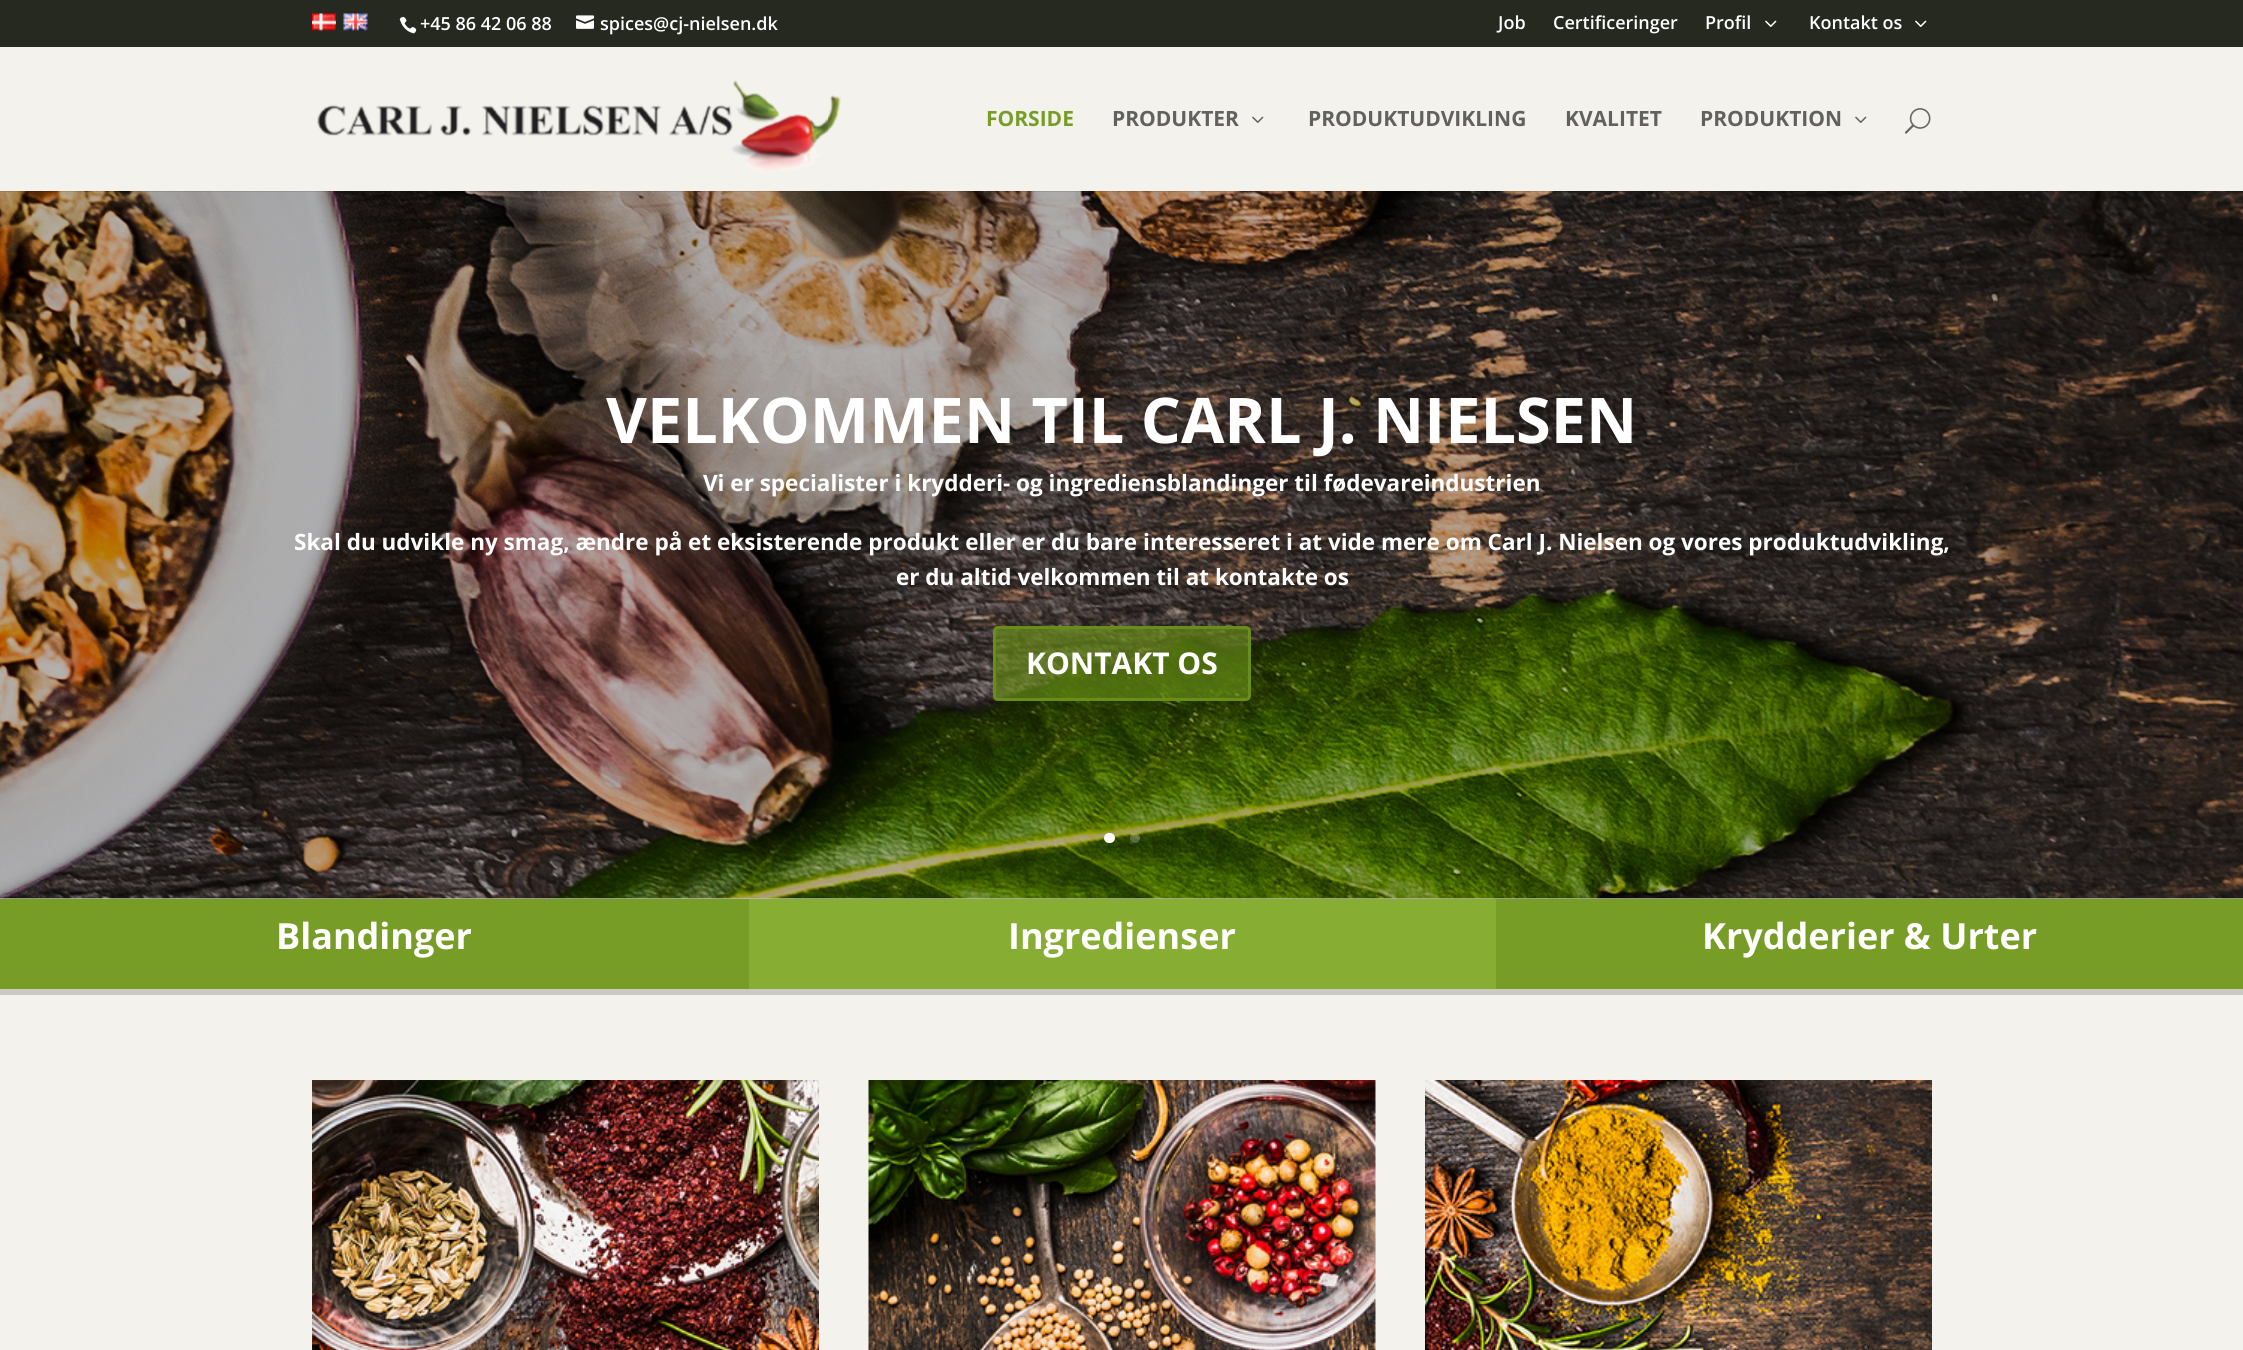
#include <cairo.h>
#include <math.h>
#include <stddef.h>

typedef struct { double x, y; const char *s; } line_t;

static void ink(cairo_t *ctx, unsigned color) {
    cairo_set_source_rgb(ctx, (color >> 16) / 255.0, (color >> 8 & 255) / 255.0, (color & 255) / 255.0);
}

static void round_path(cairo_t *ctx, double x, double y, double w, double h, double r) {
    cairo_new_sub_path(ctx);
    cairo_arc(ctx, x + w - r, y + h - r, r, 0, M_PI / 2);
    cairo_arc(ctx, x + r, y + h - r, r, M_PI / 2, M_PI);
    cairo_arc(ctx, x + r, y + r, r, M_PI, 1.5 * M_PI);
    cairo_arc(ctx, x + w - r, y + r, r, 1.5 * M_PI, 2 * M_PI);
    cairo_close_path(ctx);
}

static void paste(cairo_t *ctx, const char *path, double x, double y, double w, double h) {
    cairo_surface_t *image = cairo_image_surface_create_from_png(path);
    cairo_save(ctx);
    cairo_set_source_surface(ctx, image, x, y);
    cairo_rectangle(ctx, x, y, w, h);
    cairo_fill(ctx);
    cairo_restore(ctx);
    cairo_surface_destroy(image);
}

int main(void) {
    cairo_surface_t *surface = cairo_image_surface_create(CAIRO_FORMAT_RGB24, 2243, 1350);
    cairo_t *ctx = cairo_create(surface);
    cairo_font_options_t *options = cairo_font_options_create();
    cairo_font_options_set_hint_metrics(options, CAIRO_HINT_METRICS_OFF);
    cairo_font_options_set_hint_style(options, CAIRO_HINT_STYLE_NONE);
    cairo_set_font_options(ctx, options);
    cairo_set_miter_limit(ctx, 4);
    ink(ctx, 0xF3F2ED);
    cairo_paint(ctx);
    ink(ctx, 0x262920);
    cairo_rectangle(ctx, 0, 0, 2243, 47);
    cairo_fill(ctx);
    paste(ctx, "media/1.png", 312, 13, 24, 18);
    paste(ctx, "media/2.png", 343, 13, 25, 18);
    paste(ctx, "media/3.png", 399, 16, 18, 18);
    cairo_select_font_face(ctx, "Open Sans SemiBold", CAIRO_FONT_SLANT_NORMAL, CAIRO_FONT_WEIGHT_NORMAL);
    cairo_set_font_size(ctx, 18);
    ink(ctx, 0xFFFFFF);
    cairo_move_to(ctx, 420, 30);
    cairo_show_text(ctx, "+45 86 42 06 88");
    paste(ctx, "media/4.png", 576, 15, 18, 14);
    {
        static const line_t items[] = {
            {600, 30, "spices@cj-nielsen.dk"},
            {1498, 29, "Job"},
            {1553, 29, "Certificeringer"},
            {1705, 29, "Profil"},
        };
        for (size_t i = 0; i < sizeof items / sizeof *items; i++) {
            cairo_move_to(ctx, items[i].x, items[i].y);
            cairo_show_text(ctx, items[i].s);
        }
    }
    paste(ctx, "media/5.png", 1765, 20, 12, 7);
    cairo_move_to(ctx, 1809, 29);
    cairo_show_text(ctx, "Kontakt os");
    paste(ctx, "media/5.png", 1915, 20, 12, 7);
    ink(ctx, 0xBABABA);
    cairo_rectangle(ctx, 0, 898, 2243, 1);
    cairo_fill(ctx);
    paste(ctx, "media/9.png", 0, 191, 2243, 708);
    cairo_set_source_rgba(ctx, 0, 0, 0, 0.1);
    cairo_rectangle(ctx, 0, 191, 2243, 1);
    cairo_fill(ctx);
    paste(ctx, "media/6.png", 317, 80, 524, 91);
    cairo_select_font_face(ctx, "Open Sans", CAIRO_FONT_SLANT_NORMAL, CAIRO_FONT_WEIGHT_BOLD);
    cairo_set_font_size(ctx, 21);
    ink(ctx, 0x789D27);
    cairo_move_to(ctx, 986, 126);
    cairo_show_text(ctx, "FORSIDE");
    ink(ctx, 0x61615F);
    cairo_move_to(ctx, 1112, 126);
    cairo_show_text(ctx, "PRODUKTER");
    paste(ctx, "media/7.png", 1252, 116, 12, 7);
    {
        static const line_t items[] = {
            {1308, 126, "PRODUKTUDVIKLING"},
            {1565, 126, "KVALITET"},
            {1700, 126, "PRODUKTION"},
        };
        for (size_t i = 0; i < sizeof items / sizeof *items; i++) {
            cairo_move_to(ctx, items[i].x, items[i].y);
            cairo_show_text(ctx, items[i].s);
        }
    }
    paste(ctx, "media/7.png", 1855, 116, 12, 7);
    paste(ctx, "media/8.png", 1904, 108, 27, 26);
    cairo_set_font_size(ctx, 63);
    ink(ctx, 0xFFFFFF);
    cairo_move_to(ctx, 606, 443);
    cairo_show_text(ctx, "VELKOMMEN TIL CARL J. NIELSEN");
    cairo_set_font_size(ctx, 22.5);
    {
        static const line_t items[] = {
            {703, 491, "Vi er specialister i krydderi- og ingrediensblandinger til fødevareindustrien"},
            {294, 550, "Skal du udvikle ny smag, ændre på et eksisterende produkt eller er du bare interesseret i at vide mere om Carl J. Nielsen og vores produktudvikling,"},
            {896, 585, "er du altid velkommen til at kontakte os"},
        };
        for (size_t i = 0; i < sizeof items / sizeof *items; i++) {
            cairo_move_to(ctx, items[i].x, items[i].y);
            cairo_show_text(ctx, items[i].s);
        }
    }
    cairo_set_source_rgba(ctx, 0.412, 0.557, 0.094, 0.66);
    round_path(ctx, 994.5, 627.5, 255, 72, 3.5);
    cairo_fill_preserve(ctx);
    ink(ctx, 0x698E18);
    cairo_set_line_width(ctx, 3);
    cairo_stroke(ctx);
    cairo_set_font_size(ctx, 30);
    ink(ctx, 0xFFFFFF);
    cairo_move_to(ctx, 1026, 674);
    cairo_show_text(ctx, "KONTAKT OS");
    round_path(ctx, 1104, 833, 11, 10, 5);
    cairo_fill(ctx);
    cairo_set_source_rgba(ctx, 1, 1, 1, 0.25);
    cairo_arc(ctx, 1135, 838, 5, 0, 2 * M_PI);
    cairo_fill(ctx);
    ink(ctx, 0x789D27);
    cairo_rectangle(ctx, 0, 899, 749, 90);
    cairo_fill(ctx);
    cairo_set_font_size(ctx, 36);
    ink(ctx, 0xFFFFFF);
    cairo_move_to(ctx, 276, 949);
    cairo_show_text(ctx, "Blandinger");
    ink(ctx, 0x87AD33);
    cairo_rectangle(ctx, 749, 899, 747, 90);
    cairo_fill(ctx);
    ink(ctx, 0xFFFFFF);
    cairo_move_to(ctx, 1008, 949);
    cairo_show_text(ctx, "Ingredienser");
    ink(ctx, 0x789D27);
    cairo_rectangle(ctx, 1496, 899, 747, 90);
    cairo_fill(ctx);
    ink(ctx, 0xFFFFFF);
    cairo_move_to(ctx, 1702, 949);
    cairo_show_text(ctx, "Krydderier & Urter");
    ink(ctx, 0xCAC9C6);
    cairo_rectangle(ctx, 0, 989, 2243, 6);
    cairo_fill(ctx);
    paste(ctx, "media/10.png", 312, 1080, 507, 270);
    paste(ctx, "media/11.png", 868, 1080, 508, 270);
    paste(ctx, "media/12.png", 1425, 1080, 507, 270);
    cairo_surface_write_to_png(surface, "image.png");
    cairo_font_options_destroy(options);
    cairo_destroy(ctx);
    cairo_surface_destroy(surface);
    return 0;
}
